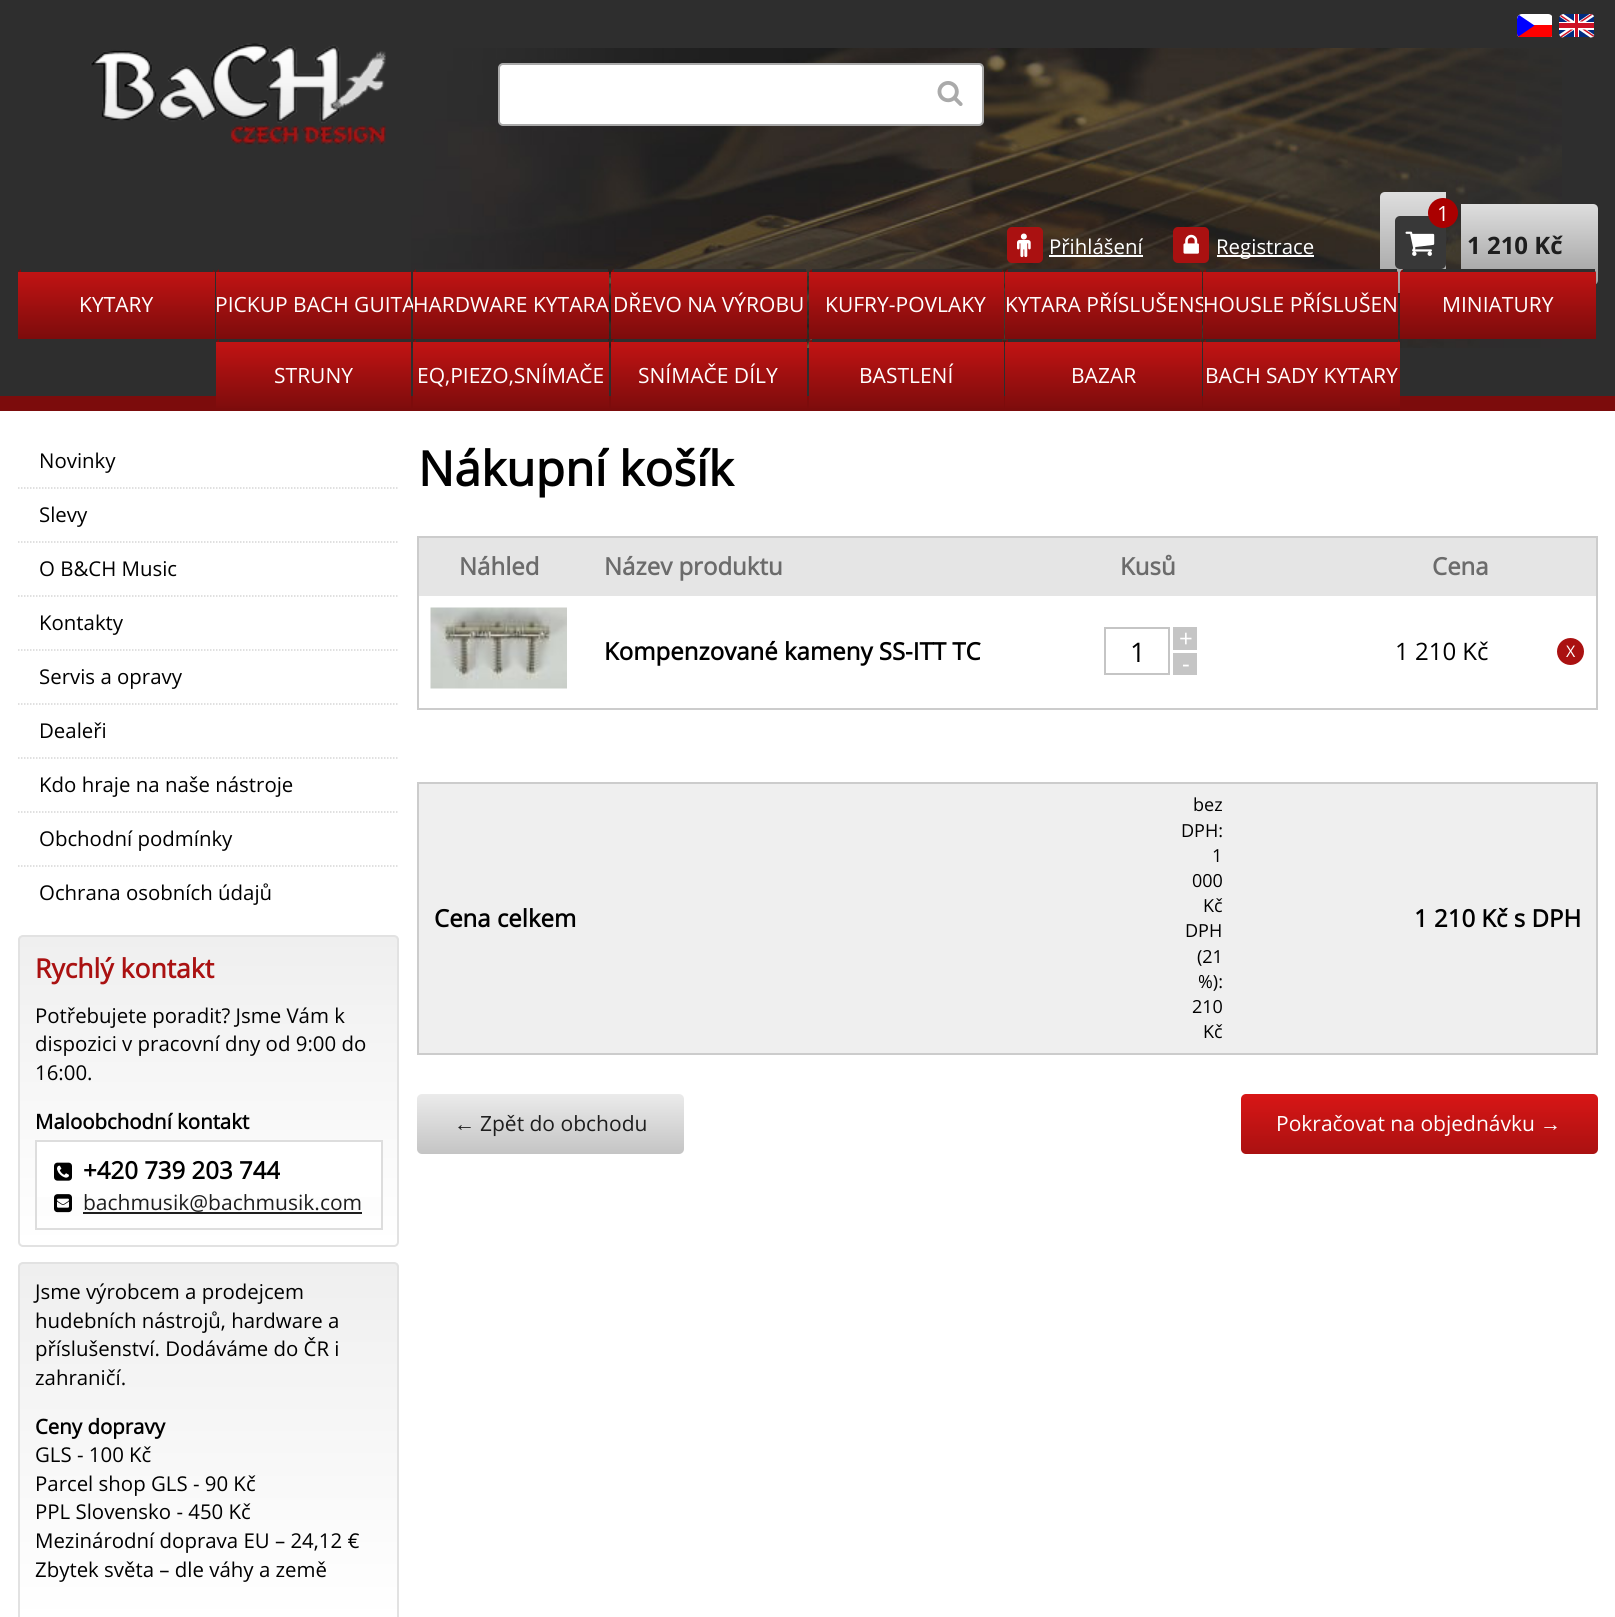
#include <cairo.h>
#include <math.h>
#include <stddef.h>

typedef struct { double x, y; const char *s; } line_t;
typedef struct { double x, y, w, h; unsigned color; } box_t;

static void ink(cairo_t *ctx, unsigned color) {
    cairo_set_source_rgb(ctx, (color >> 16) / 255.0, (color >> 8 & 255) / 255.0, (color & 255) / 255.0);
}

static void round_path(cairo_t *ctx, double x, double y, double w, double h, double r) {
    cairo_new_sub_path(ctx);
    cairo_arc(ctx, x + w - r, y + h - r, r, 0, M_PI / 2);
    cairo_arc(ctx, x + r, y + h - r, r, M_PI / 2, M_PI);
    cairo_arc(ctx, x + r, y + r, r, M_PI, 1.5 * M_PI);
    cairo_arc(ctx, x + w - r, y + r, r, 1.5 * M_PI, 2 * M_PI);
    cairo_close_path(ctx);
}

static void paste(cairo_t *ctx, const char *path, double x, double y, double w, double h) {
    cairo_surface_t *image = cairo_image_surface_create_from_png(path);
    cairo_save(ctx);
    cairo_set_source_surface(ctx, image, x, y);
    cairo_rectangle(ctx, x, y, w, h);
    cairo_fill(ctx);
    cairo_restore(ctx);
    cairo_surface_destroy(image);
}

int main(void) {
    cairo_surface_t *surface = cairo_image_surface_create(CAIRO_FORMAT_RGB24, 1615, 1617);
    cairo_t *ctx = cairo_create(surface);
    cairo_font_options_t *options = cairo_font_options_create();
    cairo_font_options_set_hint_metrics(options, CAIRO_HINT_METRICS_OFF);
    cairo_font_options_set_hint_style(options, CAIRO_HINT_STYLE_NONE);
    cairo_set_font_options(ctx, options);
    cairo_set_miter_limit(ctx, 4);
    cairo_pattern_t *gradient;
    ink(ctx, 0x2E2E2E);
    cairo_paint(ctx);
    paste(ctx, "media/1.png", 411, 48, 1151, 300);
    ink(ctx, 0x7C0C0C);
    cairo_rectangle(ctx, 0, 396, 1615, 15);
    cairo_fill(ctx);
    cairo_save(ctx);
    round_path(ctx, 1517, 14, 36, 24, 5);
    cairo_clip(ctx);
    ink(ctx, 0xFFFFFF);
    cairo_new_path(ctx);
    cairo_move_to(ctx, 1522, 14);
    cairo_line_to(ctx, 1552, 14);
    cairo_line_to(ctx, 1552, 37);
    cairo_line_to(ctx, 1517, 37);
    cairo_line_to(ctx, 1517, 19);
    cairo_curve_to(ctx, 1517, 16, 1519, 14, 1522, 14);
    cairo_close_path(ctx);
    cairo_fill(ctx);
    cairo_restore(ctx);
    paste(ctx, "media/2.png", 1559, 14, 36, 24);
    cairo_save(ctx);
    round_path(ctx, 1517, 14, 36, 24, 5);
    cairo_clip(ctx);
    ink(ctx, 0xFF0000);
    cairo_rectangle(ctx, 1517, 25, 35, 12);
    cairo_fill(ctx);
    cairo_restore(ctx);
    cairo_save(ctx);
    cairo_rectangle(ctx, 1517, 14, 36, 24);
    cairo_clip(ctx);
    ink(ctx, 0x0000FF);
    cairo_new_path(ctx);
    cairo_move_to(ctx, 1534.5, 25.5);
    cairo_line_to(ctx, 1519, 15);
    cairo_curve_to(ctx, 1516, 17.5, 1517, 23, 1517, 26);
    cairo_curve_to(ctx, 1517, 29, 1516, 34, 1518.5, 36.5);
    cairo_close_path(ctx);
    cairo_fill(ctx);
    cairo_restore(ctx);
    paste(ctx, "media/3.png", 90, 43, 296, 102);
    ink(ctx, 0xFFFFFF);
    round_path(ctx, 499, 64, 484, 61, 4);
    cairo_fill_preserve(ctx);
    ink(ctx, 0xAAAAAA);
    cairo_stroke(ctx);
    paste(ctx, "media/4.png", 937, 81, 26, 25);
    ink(ctx, 0xAA1111);
    round_path(ctx, 1007, 227, 36, 36, 5);
    cairo_fill(ctx);
    paste(ctx, "media/5.png", 1017, 233, 14, 25);
    cairo_select_font_face(ctx, "Open Sans", CAIRO_FONT_SLANT_NORMAL, CAIRO_FONT_WEIGHT_NORMAL);
    cairo_set_font_size(ctx, 20.4);
    ink(ctx, 0xFFFFFF);
    cairo_move_to(ctx, 1049, 254);
    cairo_show_text(ctx, "Přihlášení");
    cairo_rectangle(ctx, 1049, 255, 94, 2);
    cairo_fill(ctx);
    ink(ctx, 0xAA1111);
    round_path(ctx, 1173, 227, 36, 36, 5);
    cairo_fill(ctx);
    paste(ctx, "media/6.png", 1183, 234, 16, 20);
    ink(ctx, 0xFFFFFF);
    cairo_rectangle(ctx, 1217, 255, 97, 2);
    cairo_fill(ctx);
    cairo_move_to(ctx, 1216, 254);
    cairo_show_text(ctx, "Registrace");
    gradient = cairo_pattern_create_linear(1413, 293, 1413, 192);
    cairo_pattern_add_color_stop_rgba(gradient, 0, 0.62, 0.62, 0.62, 1);
    cairo_pattern_add_color_stop_rgba(gradient, 1, 0.871, 0.871, 0.871, 1);
    cairo_set_source(ctx, gradient);
    cairo_pattern_destroy(gradient);
    cairo_new_path(ctx);
    cairo_move_to(ctx, 1385, 192);
    cairo_line_to(ctx, 1446, 192);
    cairo_line_to(ctx, 1446, 293);
    cairo_line_to(ctx, 1385, 293);
    cairo_curve_to(ctx, 1382, 293, 1380, 291, 1380, 288);
    cairo_line_to(ctx, 1380, 197);
    cairo_curve_to(ctx, 1380, 194, 1382, 192, 1385, 192);
    cairo_close_path(ctx);
    cairo_fill(ctx);
    ink(ctx, 0x383838);
    round_path(ctx, 1395, 216, 51, 53, 5);
    cairo_fill(ctx);
    ink(ctx, 0xAA0000);
    cairo_arc(ctx, 1443, 213, 15, 0, 2 * M_PI);
    cairo_fill(ctx);
    cairo_set_font_size(ctx, 21);
    ink(ctx, 0xFFFFFF);
    cairo_move_to(ctx, 1437, 221);
    cairo_show_text(ctx, "1");
    gradient = cairo_pattern_create_linear(1529, 285, 1529, 204);
    cairo_pattern_add_color_stop_rgba(gradient, 0, 0.62, 0.62, 0.62, 1);
    cairo_pattern_add_color_stop_rgba(gradient, 1, 0.871, 0.871, 0.871, 1);
    cairo_set_source(ctx, gradient);
    cairo_pattern_destroy(gradient);
    cairo_new_path(ctx);
    cairo_move_to(ctx, 1461, 204);
    cairo_line_to(ctx, 1593, 204);
    cairo_curve_to(ctx, 1596, 204, 1598, 206, 1598, 209);
    cairo_line_to(ctx, 1598, 280);
    cairo_curve_to(ctx, 1598, 283, 1596, 285, 1593, 285);
    cairo_line_to(ctx, 1461, 285);
    cairo_close_path(ctx);
    cairo_fill(ctx);
    paste(ctx, "media/7.png", 1405, 231, 30, 25);
    cairo_select_font_face(ctx, "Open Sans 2", CAIRO_FONT_SLANT_NORMAL, CAIRO_FONT_WEIGHT_BOLD);
    cairo_set_font_size(ctx, 24);
    ink(ctx, 0x1E1E1E);
    cairo_move_to(ctx, 1467, 254);
    cairo_show_text(ctx, "1 210 Kč");
    cairo_save(ctx);
    cairo_new_path(ctx);
    cairo_move_to(ctx, 23, 269);
    cairo_line_to(ctx, 210, 269);
    cairo_curve_to(ctx, 213, 269, 215, 271, 215, 274);
    cairo_line_to(ctx, 215, 339);
    cairo_line_to(ctx, 18, 339);
    cairo_line_to(ctx, 18, 274);
    cairo_curve_to(ctx, 18, 271, 20, 269, 23, 269);
    cairo_close_path(ctx);
    cairo_clip(ctx);
    gradient = cairo_pattern_create_linear(116, 272, 116, 204);
    cairo_pattern_add_color_stop_rgba(gradient, 0, 0.486, 0.047, 0.047, 1);
    cairo_pattern_add_color_stop_rgba(gradient, 1, 0.757, 0.075, 0.075, 1);
    cairo_set_source(ctx, gradient);
    cairo_pattern_destroy(gradient);
    cairo_rectangle(ctx, 18, 269, 197, 3);
    cairo_fill(ctx);
    cairo_restore(ctx);
    gradient = cairo_pattern_create_linear(116, 339, 116, 272);
    cairo_pattern_add_color_stop_rgba(gradient, 0, 0.486, 0.047, 0.047, 1);
    cairo_pattern_add_color_stop_rgba(gradient, 1, 0.757, 0.075, 0.075, 1);
    cairo_set_source(ctx, gradient);
    cairo_pattern_destroy(gradient);
    cairo_rectangle(ctx, 18, 272, 197, 67);
    cairo_fill(ctx);
    ink(ctx, 0x2E2E2E);
    cairo_rectangle(ctx, 21, 269, 192, 3);
    cairo_fill(ctx);
    cairo_select_font_face(ctx, "Open Sans", CAIRO_FONT_SLANT_NORMAL, CAIRO_FONT_WEIGHT_NORMAL);
    cairo_set_font_size(ctx, 21);
    ink(ctx, 0xFFFFFF);
    cairo_move_to(ctx, 79, 312);
    cairo_show_text(ctx, "KYTARY");
    cairo_save(ctx);
    cairo_new_path(ctx);
    cairo_move_to(ctx, 221, 269);
    cairo_line_to(ctx, 406, 269);
    cairo_curve_to(ctx, 409, 269, 411, 271, 411, 274);
    cairo_line_to(ctx, 411, 339);
    cairo_line_to(ctx, 216, 339);
    cairo_line_to(ctx, 216, 274);
    cairo_curve_to(ctx, 216, 271, 218, 269, 221, 269);
    cairo_close_path(ctx);
    cairo_clip(ctx);
    gradient = cairo_pattern_create_linear(314, 272, 314, 204);
    cairo_pattern_add_color_stop_rgba(gradient, 0, 0.486, 0.047, 0.047, 1);
    cairo_pattern_add_color_stop_rgba(gradient, 1, 0.757, 0.075, 0.075, 1);
    cairo_set_source(ctx, gradient);
    cairo_pattern_destroy(gradient);
    cairo_rectangle(ctx, 216, 269, 195, 3);
    cairo_fill(ctx);
    cairo_restore(ctx);
    gradient = cairo_pattern_create_linear(314, 339, 314, 272);
    cairo_pattern_add_color_stop_rgba(gradient, 0, 0.486, 0.047, 0.047, 1);
    cairo_pattern_add_color_stop_rgba(gradient, 1, 0.757, 0.075, 0.075, 1);
    cairo_set_source(ctx, gradient);
    cairo_pattern_destroy(gradient);
    cairo_rectangle(ctx, 216, 272, 195, 67);
    cairo_fill(ctx);
    ink(ctx, 0x2E2E2E);
    cairo_rectangle(ctx, 219, 269, 191, 3);
    cairo_fill(ctx);
    ink(ctx, 0xFFFFFF);
    cairo_move_to(ctx, 215, 312);
    cairo_show_text(ctx, "PICKUP BACH GUITA");
    cairo_save(ctx);
    cairo_new_path(ctx);
    cairo_move_to(ctx, 418, 269);
    cairo_line_to(ctx, 604, 269);
    cairo_curve_to(ctx, 607, 269, 609, 271, 609, 274);
    cairo_line_to(ctx, 609, 339);
    cairo_line_to(ctx, 413, 339);
    cairo_line_to(ctx, 413, 274);
    cairo_curve_to(ctx, 413, 271, 415, 269, 418, 269);
    cairo_close_path(ctx);
    cairo_clip(ctx);
    gradient = cairo_pattern_create_linear(511, 272, 511, 204);
    cairo_pattern_add_color_stop_rgba(gradient, 0, 0.486, 0.047, 0.047, 1);
    cairo_pattern_add_color_stop_rgba(gradient, 1, 0.757, 0.075, 0.075, 1);
    cairo_set_source(ctx, gradient);
    cairo_pattern_destroy(gradient);
    cairo_rectangle(ctx, 413, 269, 196, 3);
    cairo_fill(ctx);
    cairo_restore(ctx);
    gradient = cairo_pattern_create_linear(511, 339, 511, 272);
    cairo_pattern_add_color_stop_rgba(gradient, 0, 0.486, 0.047, 0.047, 1);
    cairo_pattern_add_color_stop_rgba(gradient, 1, 0.757, 0.075, 0.075, 1);
    cairo_set_source(ctx, gradient);
    cairo_pattern_destroy(gradient);
    cairo_rectangle(ctx, 413, 272, 196, 67);
    cairo_fill(ctx);
    ink(ctx, 0x2E2E2E);
    cairo_rectangle(ctx, 416, 269, 192, 3);
    cairo_fill(ctx);
    ink(ctx, 0xFFFFFF);
    cairo_move_to(ctx, 413, 312);
    cairo_show_text(ctx, "HARDWARE KYTARA");
    cairo_save(ctx);
    cairo_new_path(ctx);
    cairo_move_to(ctx, 616, 269);
    cairo_line_to(ctx, 802, 269);
    cairo_curve_to(ctx, 805, 269, 807, 271, 807, 274);
    cairo_line_to(ctx, 807, 339);
    cairo_line_to(ctx, 611, 339);
    cairo_line_to(ctx, 611, 274);
    cairo_curve_to(ctx, 611, 271, 613, 269, 616, 269);
    cairo_close_path(ctx);
    cairo_clip(ctx);
    gradient = cairo_pattern_create_linear(709, 272, 709, 204);
    cairo_pattern_add_color_stop_rgba(gradient, 0, 0.486, 0.047, 0.047, 1);
    cairo_pattern_add_color_stop_rgba(gradient, 1, 0.757, 0.075, 0.075, 1);
    cairo_set_source(ctx, gradient);
    cairo_pattern_destroy(gradient);
    cairo_rectangle(ctx, 611, 269, 196, 3);
    cairo_fill(ctx);
    cairo_restore(ctx);
    gradient = cairo_pattern_create_linear(709, 339, 709, 272);
    cairo_pattern_add_color_stop_rgba(gradient, 0, 0.486, 0.047, 0.047, 1);
    cairo_pattern_add_color_stop_rgba(gradient, 1, 0.757, 0.075, 0.075, 1);
    cairo_set_source(ctx, gradient);
    cairo_pattern_destroy(gradient);
    cairo_rectangle(ctx, 611, 272, 196, 67);
    cairo_fill(ctx);
    ink(ctx, 0x2E2E2E);
    cairo_rectangle(ctx, 614, 269, 192, 3);
    cairo_fill(ctx);
    ink(ctx, 0xFFFFFF);
    cairo_move_to(ctx, 613, 312);
    cairo_show_text(ctx, "DŘEVO NA VÝROBU");
    cairo_save(ctx);
    cairo_new_path(ctx);
    cairo_move_to(ctx, 814, 269);
    cairo_line_to(ctx, 999, 269);
    cairo_curve_to(ctx, 1002, 269, 1004, 271, 1004, 274);
    cairo_line_to(ctx, 1004, 339);
    cairo_line_to(ctx, 809, 339);
    cairo_line_to(ctx, 809, 274);
    cairo_curve_to(ctx, 809, 271, 811, 269, 814, 269);
    cairo_close_path(ctx);
    cairo_clip(ctx);
    gradient = cairo_pattern_create_linear(906, 272, 906, 204);
    cairo_pattern_add_color_stop_rgba(gradient, 0, 0.486, 0.047, 0.047, 1);
    cairo_pattern_add_color_stop_rgba(gradient, 1, 0.757, 0.075, 0.075, 1);
    cairo_set_source(ctx, gradient);
    cairo_pattern_destroy(gradient);
    cairo_rectangle(ctx, 809, 269, 195, 3);
    cairo_fill(ctx);
    cairo_restore(ctx);
    gradient = cairo_pattern_create_linear(906, 339, 906, 272);
    cairo_pattern_add_color_stop_rgba(gradient, 0, 0.486, 0.047, 0.047, 1);
    cairo_pattern_add_color_stop_rgba(gradient, 1, 0.757, 0.075, 0.075, 1);
    cairo_set_source(ctx, gradient);
    cairo_pattern_destroy(gradient);
    cairo_rectangle(ctx, 809, 272, 195, 67);
    cairo_fill(ctx);
    ink(ctx, 0x2E2E2E);
    cairo_rectangle(ctx, 812, 269, 190, 3);
    cairo_fill(ctx);
    ink(ctx, 0xFFFFFF);
    cairo_move_to(ctx, 825, 312);
    cairo_show_text(ctx, "KUFRY-POVLAKY");
    cairo_save(ctx);
    cairo_new_path(ctx);
    cairo_move_to(ctx, 1010, 269);
    cairo_line_to(ctx, 1197, 269);
    cairo_curve_to(ctx, 1200, 269, 1202, 271, 1202, 274);
    cairo_line_to(ctx, 1202, 339);
    cairo_line_to(ctx, 1005, 339);
    cairo_line_to(ctx, 1005, 274);
    cairo_curve_to(ctx, 1005, 271, 1007, 269, 1010, 269);
    cairo_close_path(ctx);
    cairo_clip(ctx);
    gradient = cairo_pattern_create_linear(1103, 272, 1103, 204);
    cairo_pattern_add_color_stop_rgba(gradient, 0, 0.486, 0.047, 0.047, 1);
    cairo_pattern_add_color_stop_rgba(gradient, 1, 0.757, 0.075, 0.075, 1);
    cairo_set_source(ctx, gradient);
    cairo_pattern_destroy(gradient);
    cairo_rectangle(ctx, 1005, 269, 197, 3);
    cairo_fill(ctx);
    cairo_restore(ctx);
    gradient = cairo_pattern_create_linear(1103, 339, 1103, 272);
    cairo_pattern_add_color_stop_rgba(gradient, 0, 0.486, 0.047, 0.047, 1);
    cairo_pattern_add_color_stop_rgba(gradient, 1, 0.757, 0.075, 0.075, 1);
    cairo_set_source(ctx, gradient);
    cairo_pattern_destroy(gradient);
    cairo_rectangle(ctx, 1005, 272, 197, 67);
    cairo_fill(ctx);
    ink(ctx, 0x2E2E2E);
    cairo_rectangle(ctx, 1008, 269, 192, 3);
    cairo_fill(ctx);
    ink(ctx, 0xFFFFFF);
    cairo_move_to(ctx, 1005, 312);
    cairo_show_text(ctx, "KYTARA PŘÍSLUŠENS");
    cairo_save(ctx);
    cairo_new_path(ctx);
    cairo_move_to(ctx, 1208, 269);
    cairo_line_to(ctx, 1393, 269);
    cairo_curve_to(ctx, 1396, 269, 1398, 271, 1398, 274);
    cairo_line_to(ctx, 1398, 339);
    cairo_line_to(ctx, 1203, 339);
    cairo_line_to(ctx, 1203, 274);
    cairo_curve_to(ctx, 1203, 271, 1205, 269, 1208, 269);
    cairo_close_path(ctx);
    cairo_clip(ctx);
    gradient = cairo_pattern_create_linear(1301, 272, 1301, 204);
    cairo_pattern_add_color_stop_rgba(gradient, 0, 0.486, 0.047, 0.047, 1);
    cairo_pattern_add_color_stop_rgba(gradient, 1, 0.757, 0.075, 0.075, 1);
    cairo_set_source(ctx, gradient);
    cairo_pattern_destroy(gradient);
    cairo_rectangle(ctx, 1203, 269, 195, 3);
    cairo_fill(ctx);
    cairo_restore(ctx);
    gradient = cairo_pattern_create_linear(1301, 339, 1301, 272);
    cairo_pattern_add_color_stop_rgba(gradient, 0, 0.486, 0.047, 0.047, 1);
    cairo_pattern_add_color_stop_rgba(gradient, 1, 0.757, 0.075, 0.075, 1);
    cairo_set_source(ctx, gradient);
    cairo_pattern_destroy(gradient);
    cairo_rectangle(ctx, 1203, 272, 195, 67);
    cairo_fill(ctx);
    ink(ctx, 0x2E2E2E);
    cairo_rectangle(ctx, 1206, 269, 191, 3);
    cairo_fill(ctx);
    ink(ctx, 0xFFFFFF);
    cairo_move_to(ctx, 1203, 312);
    cairo_show_text(ctx, "HOUSLE PŘÍSLUŠEN");
    cairo_save(ctx);
    cairo_new_path(ctx);
    cairo_move_to(ctx, 1405, 269);
    cairo_line_to(ctx, 1591, 269);
    cairo_curve_to(ctx, 1594, 269, 1596, 271, 1596, 274);
    cairo_line_to(ctx, 1596, 339);
    cairo_line_to(ctx, 1400, 339);
    cairo_line_to(ctx, 1400, 274);
    cairo_curve_to(ctx, 1400, 271, 1402, 269, 1405, 269);
    cairo_close_path(ctx);
    cairo_clip(ctx);
    gradient = cairo_pattern_create_linear(1498, 272, 1498, 204);
    cairo_pattern_add_color_stop_rgba(gradient, 0, 0.486, 0.047, 0.047, 1);
    cairo_pattern_add_color_stop_rgba(gradient, 1, 0.757, 0.075, 0.075, 1);
    cairo_set_source(ctx, gradient);
    cairo_pattern_destroy(gradient);
    cairo_rectangle(ctx, 1400, 269, 196, 3);
    cairo_fill(ctx);
    cairo_restore(ctx);
    gradient = cairo_pattern_create_linear(1498, 339, 1498, 272);
    cairo_pattern_add_color_stop_rgba(gradient, 0, 0.486, 0.047, 0.047, 1);
    cairo_pattern_add_color_stop_rgba(gradient, 1, 0.757, 0.075, 0.075, 1);
    cairo_set_source(ctx, gradient);
    cairo_pattern_destroy(gradient);
    cairo_rectangle(ctx, 1400, 272, 196, 67);
    cairo_fill(ctx);
    ink(ctx, 0x2E2E2E);
    cairo_rectangle(ctx, 1403, 269, 192, 3);
    cairo_fill(ctx);
    ink(ctx, 0xFFFFFF);
    cairo_move_to(ctx, 1442, 312);
    cairo_show_text(ctx, "MINIATURY");
    cairo_save(ctx);
    cairo_new_path(ctx);
    cairo_move_to(ctx, 221, 339);
    cairo_line_to(ctx, 406, 339);
    cairo_curve_to(ctx, 409, 339, 411, 341, 411, 344);
    cairo_line_to(ctx, 411, 411);
    cairo_line_to(ctx, 216, 411);
    cairo_line_to(ctx, 216, 344);
    cairo_curve_to(ctx, 216, 341, 218, 339, 221, 339);
    cairo_close_path(ctx);
    cairo_clip(ctx);
    gradient = cairo_pattern_create_linear(314, 342, 314, 273);
    cairo_pattern_add_color_stop_rgba(gradient, 0, 0.486, 0.047, 0.047, 1);
    cairo_pattern_add_color_stop_rgba(gradient, 1, 0.757, 0.075, 0.075, 1);
    cairo_set_source(ctx, gradient);
    cairo_pattern_destroy(gradient);
    cairo_rectangle(ctx, 216, 339, 195, 3);
    cairo_fill(ctx);
    cairo_restore(ctx);
    gradient = cairo_pattern_create_linear(314, 411, 314, 342);
    cairo_pattern_add_color_stop_rgba(gradient, 0, 0.486, 0.047, 0.047, 1);
    cairo_pattern_add_color_stop_rgba(gradient, 1, 0.757, 0.075, 0.075, 1);
    cairo_set_source(ctx, gradient);
    cairo_pattern_destroy(gradient);
    cairo_rectangle(ctx, 216, 342, 195, 66);
    cairo_fill(ctx);
    ink(ctx, 0x2E2E2E);
    cairo_rectangle(ctx, 219, 339, 191, 3);
    cairo_fill(ctx);
    ink(ctx, 0xFFFFFF);
    cairo_move_to(ctx, 274, 383);
    cairo_show_text(ctx, "STRUNY");
    cairo_save(ctx);
    cairo_new_path(ctx);
    cairo_move_to(ctx, 418, 339);
    cairo_line_to(ctx, 604, 339);
    cairo_curve_to(ctx, 607, 339, 609, 341, 609, 344);
    cairo_line_to(ctx, 609, 411);
    cairo_line_to(ctx, 413, 411);
    cairo_line_to(ctx, 413, 344);
    cairo_curve_to(ctx, 413, 341, 415, 339, 418, 339);
    cairo_close_path(ctx);
    cairo_clip(ctx);
    gradient = cairo_pattern_create_linear(511, 342, 511, 273);
    cairo_pattern_add_color_stop_rgba(gradient, 0, 0.486, 0.047, 0.047, 1);
    cairo_pattern_add_color_stop_rgba(gradient, 1, 0.757, 0.075, 0.075, 1);
    cairo_set_source(ctx, gradient);
    cairo_pattern_destroy(gradient);
    cairo_rectangle(ctx, 413, 339, 196, 3);
    cairo_fill(ctx);
    cairo_restore(ctx);
    gradient = cairo_pattern_create_linear(511, 411, 511, 342);
    cairo_pattern_add_color_stop_rgba(gradient, 0, 0.486, 0.047, 0.047, 1);
    cairo_pattern_add_color_stop_rgba(gradient, 1, 0.757, 0.075, 0.075, 1);
    cairo_set_source(ctx, gradient);
    cairo_pattern_destroy(gradient);
    cairo_rectangle(ctx, 413, 342, 196, 66);
    cairo_fill(ctx);
    ink(ctx, 0x2E2E2E);
    cairo_rectangle(ctx, 416, 339, 192, 3);
    cairo_fill(ctx);
    ink(ctx, 0xFFFFFF);
    cairo_move_to(ctx, 417, 383);
    cairo_show_text(ctx, "EQ,PIEZO,SNÍMAČE");
    cairo_save(ctx);
    cairo_new_path(ctx);
    cairo_move_to(ctx, 616, 339);
    cairo_line_to(ctx, 802, 339);
    cairo_curve_to(ctx, 805, 339, 807, 341, 807, 344);
    cairo_line_to(ctx, 807, 411);
    cairo_line_to(ctx, 611, 411);
    cairo_line_to(ctx, 611, 344);
    cairo_curve_to(ctx, 611, 341, 613, 339, 616, 339);
    cairo_close_path(ctx);
    cairo_clip(ctx);
    gradient = cairo_pattern_create_linear(709, 342, 709, 273);
    cairo_pattern_add_color_stop_rgba(gradient, 0, 0.486, 0.047, 0.047, 1);
    cairo_pattern_add_color_stop_rgba(gradient, 1, 0.757, 0.075, 0.075, 1);
    cairo_set_source(ctx, gradient);
    cairo_pattern_destroy(gradient);
    cairo_rectangle(ctx, 611, 339, 196, 3);
    cairo_fill(ctx);
    cairo_restore(ctx);
    gradient = cairo_pattern_create_linear(709, 411, 709, 342);
    cairo_pattern_add_color_stop_rgba(gradient, 0, 0.486, 0.047, 0.047, 1);
    cairo_pattern_add_color_stop_rgba(gradient, 1, 0.757, 0.075, 0.075, 1);
    cairo_set_source(ctx, gradient);
    cairo_pattern_destroy(gradient);
    cairo_rectangle(ctx, 611, 342, 196, 66);
    cairo_fill(ctx);
    ink(ctx, 0x2E2E2E);
    cairo_rectangle(ctx, 614, 339, 192, 3);
    cairo_fill(ctx);
    ink(ctx, 0xFFFFFF);
    cairo_move_to(ctx, 638, 383);
    cairo_show_text(ctx, "SNÍMAČE DÍLY");
    cairo_save(ctx);
    cairo_new_path(ctx);
    cairo_move_to(ctx, 814, 339);
    cairo_line_to(ctx, 999, 339);
    cairo_curve_to(ctx, 1002, 339, 1004, 341, 1004, 344);
    cairo_line_to(ctx, 1004, 411);
    cairo_line_to(ctx, 809, 411);
    cairo_line_to(ctx, 809, 344);
    cairo_curve_to(ctx, 809, 341, 811, 339, 814, 339);
    cairo_close_path(ctx);
    cairo_clip(ctx);
    gradient = cairo_pattern_create_linear(906, 342, 906, 273);
    cairo_pattern_add_color_stop_rgba(gradient, 0, 0.486, 0.047, 0.047, 1);
    cairo_pattern_add_color_stop_rgba(gradient, 1, 0.757, 0.075, 0.075, 1);
    cairo_set_source(ctx, gradient);
    cairo_pattern_destroy(gradient);
    cairo_rectangle(ctx, 809, 339, 195, 3);
    cairo_fill(ctx);
    cairo_restore(ctx);
    gradient = cairo_pattern_create_linear(906, 411, 906, 342);
    cairo_pattern_add_color_stop_rgba(gradient, 0, 0.486, 0.047, 0.047, 1);
    cairo_pattern_add_color_stop_rgba(gradient, 1, 0.757, 0.075, 0.075, 1);
    cairo_set_source(ctx, gradient);
    cairo_pattern_destroy(gradient);
    cairo_rectangle(ctx, 809, 342, 195, 66);
    cairo_fill(ctx);
    ink(ctx, 0x2E2E2E);
    cairo_rectangle(ctx, 812, 339, 190, 3);
    cairo_fill(ctx);
    ink(ctx, 0xFFFFFF);
    cairo_move_to(ctx, 859, 383);
    cairo_show_text(ctx, "BASTLENÍ");
    cairo_save(ctx);
    cairo_new_path(ctx);
    cairo_move_to(ctx, 1010, 339);
    cairo_line_to(ctx, 1197, 339);
    cairo_curve_to(ctx, 1200, 339, 1202, 341, 1202, 344);
    cairo_line_to(ctx, 1202, 411);
    cairo_line_to(ctx, 1005, 411);
    cairo_line_to(ctx, 1005, 344);
    cairo_curve_to(ctx, 1005, 341, 1007, 339, 1010, 339);
    cairo_close_path(ctx);
    cairo_clip(ctx);
    gradient = cairo_pattern_create_linear(1103, 342, 1103, 273);
    cairo_pattern_add_color_stop_rgba(gradient, 0, 0.486, 0.047, 0.047, 1);
    cairo_pattern_add_color_stop_rgba(gradient, 1, 0.757, 0.075, 0.075, 1);
    cairo_set_source(ctx, gradient);
    cairo_pattern_destroy(gradient);
    cairo_rectangle(ctx, 1005, 339, 197, 3);
    cairo_fill(ctx);
    cairo_restore(ctx);
    gradient = cairo_pattern_create_linear(1103, 411, 1103, 342);
    cairo_pattern_add_color_stop_rgba(gradient, 0, 0.486, 0.047, 0.047, 1);
    cairo_pattern_add_color_stop_rgba(gradient, 1, 0.757, 0.075, 0.075, 1);
    cairo_set_source(ctx, gradient);
    cairo_pattern_destroy(gradient);
    cairo_rectangle(ctx, 1005, 342, 197, 66);
    cairo_fill(ctx);
    ink(ctx, 0x2E2E2E);
    cairo_rectangle(ctx, 1008, 339, 192, 3);
    cairo_fill(ctx);
    ink(ctx, 0xFFFFFF);
    cairo_move_to(ctx, 1071, 383);
    cairo_show_text(ctx, "BAZAR");
    cairo_save(ctx);
    cairo_new_path(ctx);
    cairo_move_to(ctx, 1208, 339);
    cairo_line_to(ctx, 1395, 339);
    cairo_curve_to(ctx, 1398, 339, 1400, 341, 1400, 344);
    cairo_line_to(ctx, 1400, 411);
    cairo_line_to(ctx, 1203, 411);
    cairo_line_to(ctx, 1203, 344);
    cairo_curve_to(ctx, 1203, 341, 1205, 339, 1208, 339);
    cairo_close_path(ctx);
    cairo_clip(ctx);
    gradient = cairo_pattern_create_linear(1301, 342, 1301, 273);
    cairo_pattern_add_color_stop_rgba(gradient, 0, 0.486, 0.047, 0.047, 1);
    cairo_pattern_add_color_stop_rgba(gradient, 1, 0.757, 0.075, 0.075, 1);
    cairo_set_source(ctx, gradient);
    cairo_pattern_destroy(gradient);
    cairo_rectangle(ctx, 1203, 339, 197, 3);
    cairo_fill(ctx);
    cairo_restore(ctx);
    gradient = cairo_pattern_create_linear(1301, 411, 1301, 342);
    cairo_pattern_add_color_stop_rgba(gradient, 0, 0.486, 0.047, 0.047, 1);
    cairo_pattern_add_color_stop_rgba(gradient, 1, 0.757, 0.075, 0.075, 1);
    cairo_set_source(ctx, gradient);
    cairo_pattern_destroy(gradient);
    cairo_rectangle(ctx, 1203, 342, 197, 66);
    cairo_fill(ctx);
    ink(ctx, 0x2E2E2E);
    cairo_rectangle(ctx, 1206, 339, 192, 3);
    cairo_fill(ctx);
    ink(ctx, 0xFFFFFF);
    cairo_move_to(ctx, 1205, 383);
    cairo_show_text(ctx, "BACH SADY KYTARY");
    cairo_rectangle(ctx, 0, 411, 1615, 1206);
    cairo_fill(ctx);
    cairo_new_path(ctx);
    cairo_move_to(ctx, 18, 488);
    cairo_line_to(ctx, 399, 488);
    ink(ctx, 0xD6D6D6);
    cairo_set_line_width(ctx, 1.5);
    cairo_set_dash(ctx, (double[]){1.5, 1.5}, 2, 0);
    cairo_stroke(ctx);
    cairo_set_font_size(ctx, 20.4);
    ink(ctx, 0x000000);
    cairo_move_to(ctx, 39, 468);
    cairo_show_text(ctx, "Novinky");
    cairo_new_path(ctx);
    cairo_move_to(ctx, 18, 542);
    cairo_line_to(ctx, 399, 542);
    ink(ctx, 0xD6D6D6);
    cairo_stroke(ctx);
    ink(ctx, 0x000000);
    cairo_move_to(ctx, 39, 522);
    cairo_show_text(ctx, "Slevy");
    cairo_new_path(ctx);
    cairo_move_to(ctx, 18, 596);
    cairo_line_to(ctx, 399, 596);
    ink(ctx, 0xD6D6D6);
    cairo_stroke(ctx);
    ink(ctx, 0x000000);
    cairo_move_to(ctx, 39, 576);
    cairo_show_text(ctx, "O B&CH Music");
    cairo_new_path(ctx);
    cairo_move_to(ctx, 18, 650);
    cairo_line_to(ctx, 399, 650);
    ink(ctx, 0xD6D6D6);
    cairo_stroke(ctx);
    ink(ctx, 0x000000);
    cairo_move_to(ctx, 39, 630);
    cairo_show_text(ctx, "Kontakty");
    cairo_new_path(ctx);
    cairo_move_to(ctx, 18, 704);
    cairo_line_to(ctx, 399, 704);
    ink(ctx, 0xD6D6D6);
    cairo_stroke(ctx);
    ink(ctx, 0x000000);
    cairo_move_to(ctx, 39, 684);
    cairo_show_text(ctx, "Servis a opravy");
    cairo_new_path(ctx);
    cairo_move_to(ctx, 18, 758);
    cairo_line_to(ctx, 399, 758);
    ink(ctx, 0xD6D6D6);
    cairo_stroke(ctx);
    ink(ctx, 0x000000);
    cairo_move_to(ctx, 39, 738);
    cairo_show_text(ctx, "Dealeři");
    cairo_new_path(ctx);
    cairo_move_to(ctx, 18, 812);
    cairo_line_to(ctx, 399, 812);
    ink(ctx, 0xD6D6D6);
    cairo_stroke(ctx);
    ink(ctx, 0x000000);
    cairo_move_to(ctx, 39, 792);
    cairo_show_text(ctx, "Kdo hraje na naše nástroje");
    cairo_new_path(ctx);
    cairo_move_to(ctx, 18, 866);
    cairo_line_to(ctx, 399, 866);
    ink(ctx, 0xD6D6D6);
    cairo_stroke(ctx);
    ink(ctx, 0x000000);
    cairo_move_to(ctx, 39, 846);
    cairo_show_text(ctx, "Obchodní podmínky");
    cairo_move_to(ctx, 39, 900);
    cairo_show_text(ctx, "Ochrana osobních údajů");
    cairo_save(ctx);
    round_path(ctx, 18, 935, 381, 312, 5);
    cairo_clip(ctx);
    gradient = cairo_pattern_create_linear(209, 1245, 209, 936);
    cairo_pattern_add_color_stop_rgba(gradient, 0, 1, 1, 1, 1);
    cairo_pattern_add_color_stop_rgba(gradient, 1, 0.937, 0.937, 0.937, 1);
    cairo_set_source(ctx, gradient);
    cairo_pattern_destroy(gradient);
    cairo_rectangle(ctx, 18, 936, 381, 309);
    cairo_fill(ctx);
    cairo_restore(ctx);
    round_path(ctx, 19, 936, 379, 310, 4);
    ink(ctx, 0xE2E2E2);
    cairo_set_line_width(ctx, 2);
    cairo_set_dash(ctx, NULL, 0, 0);
    cairo_stroke(ctx);
    cairo_select_font_face(ctx, "Open Sans", CAIRO_FONT_SLANT_NORMAL, CAIRO_FONT_WEIGHT_BOLD);
    cairo_set_font_size(ctx, 26.5);
    ink(ctx, 0xAA1111);
    cairo_move_to(ctx, 35, 978);
    cairo_show_text(ctx, "Rychlý kontakt");
    cairo_select_font_face(ctx, "Open Sans", CAIRO_FONT_SLANT_NORMAL, CAIRO_FONT_WEIGHT_NORMAL);
    cairo_set_font_size(ctx, 20.4);
    ink(ctx, 0x000000);
    {
        static const line_t items[] = {
            {35, 1023, "Potřebujete poradit? Jsme Vám k"},
            {35, 1051, "dispozici v pracovní dny od 9:00 do"},
            {35, 1080, "16:00."},
        };
        for (size_t i = 0; i < sizeof items / sizeof *items; i++) {
            cairo_move_to(ctx, items[i].x, items[i].y);
            cairo_show_text(ctx, items[i].s);
        }
    }
    cairo_select_font_face(ctx, "Open Sans", CAIRO_FONT_SLANT_NORMAL, CAIRO_FONT_WEIGHT_BOLD);
    cairo_move_to(ctx, 35, 1129);
    cairo_show_text(ctx, "Maloobchodní kontakt");
    ink(ctx, 0xFFFFFF);
    cairo_rectangle(ctx, 37, 1142, 344, 55);
    cairo_fill(ctx);
    cairo_rectangle(ctx, 36, 1141, 346, 88);
    ink(ctx, 0xDDDDDD);
    cairo_stroke(ctx);
    paste(ctx, "media/8.png", 54, 1162, 18, 19);
    cairo_set_font_size(ctx, 24);
    ink(ctx, 0x000000);
    cairo_move_to(ctx, 83, 1179);
    cairo_show_text(ctx, "+420 739 203 744");
    paste(ctx, "media/9.png", 54, 1194, 18, 19);
    cairo_select_font_face(ctx, "Open Sans", CAIRO_FONT_SLANT_NORMAL, CAIRO_FONT_WEIGHT_NORMAL);
    cairo_set_font_size(ctx, 21);
    ink(ctx, 0x1E1E1E);
    cairo_move_to(ctx, 83, 1210);
    cairo_show_text(ctx, "bachmusik@bachmusik.com");
    cairo_rectangle(ctx, 83, 1212, 279, 2);
    cairo_fill(ctx);
    cairo_save(ctx);
    round_path(ctx, 18, 1262, 381, 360, 5);
    cairo_clip(ctx);
    gradient = cairo_pattern_create_linear(209, 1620, 209, 1263);
    cairo_pattern_add_color_stop_rgba(gradient, 0, 1, 1, 1, 1);
    cairo_pattern_add_color_stop_rgba(gradient, 1, 0.937, 0.937, 0.937, 1);
    cairo_set_source(ctx, gradient);
    cairo_pattern_destroy(gradient);
    cairo_rectangle(ctx, 18, 1263, 381, 354);
    cairo_fill(ctx);
    cairo_restore(ctx);
    round_path(ctx, 19, 1263, 379, 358, 4);
    ink(ctx, 0xE2E2E2);
    cairo_stroke(ctx);
    cairo_set_font_size(ctx, 20.4);
    ink(ctx, 0x000000);
    {
        static const line_t items[] = {
            {35, 1299, "Jsme výrobcem a prodejcem"},
            {35, 1328, "hudebních nástrojů, hardware a"},
            {35, 1356, "příslušenství. Dodáváme do ČR i"},
            {35, 1385, "zahraničí."},
        };
        for (size_t i = 0; i < sizeof items / sizeof *items; i++) {
            cairo_move_to(ctx, items[i].x, items[i].y);
            cairo_show_text(ctx, items[i].s);
        }
    }
    cairo_select_font_face(ctx, "Open Sans", CAIRO_FONT_SLANT_NORMAL, CAIRO_FONT_WEIGHT_BOLD);
    cairo_move_to(ctx, 35, 1434);
    cairo_show_text(ctx, "Ceny dopravy");
    cairo_select_font_face(ctx, "Open Sans", CAIRO_FONT_SLANT_NORMAL, CAIRO_FONT_WEIGHT_NORMAL);
    {
        static const line_t items[] = {
            {35, 1462, "GLS - 100 Kč"},
            {35, 1491, "Parcel shop GLS - 90 Kč"},
            {35, 1519, "PPL Slovensko - 450 Kč"},
            {35, 1548, "Mezinárodní doprava EU – 24,12 €"},
            {35, 1577, "Zbytek světa – dle váhy a země"},
        };
        for (size_t i = 0; i < sizeof items / sizeof *items; i++) {
            cairo_move_to(ctx, items[i].x, items[i].y);
            cairo_show_text(ctx, items[i].s);
        }
    }
    cairo_select_font_face(ctx, "Open Sans", CAIRO_FONT_SLANT_NORMAL, CAIRO_FONT_WEIGHT_BOLD);
    cairo_set_font_size(ctx, 48);
    cairo_move_to(ctx, 418, 486);
    cairo_show_text(ctx, "Nákupní košík");
    {
        static const box_t items[] = {
            {417, 536, 1181, 2, 0xCCCCCC},
            {1596, 536, 2, 174, 0xCCCCCC},
            {417, 708, 1181, 2, 0xCCCCCC},
            {417, 536, 2, 174, 0xCCCCCC},
            {419, 538, 1177, 58, 0xE5E5E5},
        };
        for (size_t i = 0; i < sizeof items / sizeof *items; i++) {
            ink(ctx, items[i].color);
            cairo_rectangle(ctx, items[i].x, items[i].y, items[i].w, items[i].h);
            cairo_fill(ctx);
        }
    }
    cairo_set_font_size(ctx, 24);
    ink(ctx, 0x6B6B6B);
    {
        static const line_t items[] = {
            {459, 575, "Náhled"},
            {604, 575, "Název produktu"},
            {1120, 575, "Kusů"},
            {1432, 575, "Cena"},
        };
        for (size_t i = 0; i < sizeof items / sizeof *items; i++) {
            cairo_move_to(ctx, items[i].x, items[i].y);
            cairo_show_text(ctx, items[i].s);
        }
    }
    paste(ctx, "media/10.png", 430, 607, 137, 82);
    ink(ctx, 0x000000);
    cairo_move_to(ctx, 604, 660);
    cairo_show_text(ctx, "Kompenzované kameny SS-ITT TC");
    ink(ctx, 0xC5C5C5);
    cairo_rectangle(ctx, 1173, 627, 24, 23);
    cairo_fill(ctx);
    cairo_select_font_face(ctx, "Open Sans", CAIRO_FONT_SLANT_NORMAL, CAIRO_FONT_WEIGHT_NORMAL);
    ink(ctx, 0xFFFFFF);
    cairo_move_to(ctx, 1179, 647);
    cairo_show_text(ctx, "+");
    cairo_rectangle(ctx, 1105, 628, 64, 46);
    ink(ctx, 0xC5C5C5);
    cairo_stroke(ctx);
    cairo_set_font_size(ctx, 27);
    ink(ctx, 0x000000);
    cairo_move_to(ctx, 1130, 662);
    cairo_show_text(ctx, "1");
    ink(ctx, 0xC5C5C5);
    cairo_rectangle(ctx, 1173, 653, 24, 22);
    cairo_fill(ctx);
    cairo_set_font_size(ctx, 24);
    ink(ctx, 0xFFFFFF);
    cairo_move_to(ctx, 1182, 672);
    cairo_show_text(ctx, "-");
    ink(ctx, 0x000000);
    cairo_move_to(ctx, 1395, 660);
    cairo_show_text(ctx, "1 210 Kč");
    ink(ctx, 0xAA1111);
    cairo_new_path(ctx);
    cairo_arc(ctx, 1570.5, 651.5, 13.5, 0, 2 * M_PI);
    cairo_fill(ctx);
    cairo_set_font_size(ctx, 16);
    ink(ctx, 0xFFFFFF);
    cairo_move_to(ctx, 1566, 657);
    cairo_show_text(ctx, "X");
    {
        static const box_t items[] = {
            {417, 782, 1181, 2, 0xCCCCCC},
            {1596, 782, 2, 273, 0xCCCCCC},
            {417, 1053, 1181, 2, 0xCCCCCC},
            {417, 782, 2, 273, 0xCCCCCC},
            {419, 784, 1177, 269, 0xEFEFEF},
        };
        for (size_t i = 0; i < sizeof items / sizeof *items; i++) {
            ink(ctx, items[i].color);
            cairo_rectangle(ctx, items[i].x, items[i].y, items[i].w, items[i].h);
            cairo_fill(ctx);
        }
    }
    cairo_select_font_face(ctx, "Open Sans", CAIRO_FONT_SLANT_NORMAL, CAIRO_FONT_WEIGHT_BOLD);
    cairo_set_font_size(ctx, 24);
    ink(ctx, 0x000000);
    cairo_move_to(ctx, 434, 927);
    cairo_show_text(ctx, "Cena celkem");
    cairo_select_font_face(ctx, "Open Sans", CAIRO_FONT_SLANT_NORMAL, CAIRO_FONT_WEIGHT_NORMAL);
    cairo_set_font_size(ctx, 18);
    {
        static const line_t items[] = {
            {1193, 811, "bez"},
            {1181, 837, "DPH:"},
            {1212, 862, "1"},
            {1192, 887, "000"},
            {1203, 912, "Kč"},
            {1185, 937, "DPH"},
            {1197, 963, "(21"},
            {1198, 988, "%):"},
            {1192, 1013, "210"},
            {1203, 1038, "Kč"},
        };
        for (size_t i = 0; i < sizeof items / sizeof *items; i++) {
            cairo_move_to(ctx, items[i].x, items[i].y);
            cairo_show_text(ctx, items[i].s);
        }
    }
    cairo_select_font_face(ctx, "Open Sans", CAIRO_FONT_SLANT_NORMAL, CAIRO_FONT_WEIGHT_BOLD);
    cairo_set_font_size(ctx, 24);
    cairo_move_to(ctx, 1414, 927);
    cairo_show_text(ctx, "1 210 Kč s DPH");
    gradient = cairo_pattern_create_linear(551, 1154, 551, 1094);
    cairo_pattern_add_color_stop_rgba(gradient, 0, 0.769, 0.769, 0.769, 1);
    cairo_pattern_add_color_stop_rgba(gradient, 1, 0.922, 0.922, 0.922, 1);
    cairo_set_source(ctx, gradient);
    cairo_pattern_destroy(gradient);
    round_path(ctx, 417, 1094, 267, 60, 5);
    cairo_fill(ctx);
    cairo_select_font_face(ctx, "Liberation Sans", CAIRO_FONT_SLANT_NORMAL, CAIRO_FONT_WEIGHT_NORMAL);
    cairo_set_font_size(ctx, 21);
    ink(ctx, 0x1E1E1E);
    cairo_move_to(ctx, 454, 1131);
    cairo_show_text(ctx, "←");
    cairo_select_font_face(ctx, "Open Sans", CAIRO_FONT_SLANT_NORMAL, CAIRO_FONT_WEIGHT_NORMAL);
    cairo_move_to(ctx, 480, 1131);
    cairo_show_text(ctx, "Zpět do obchodu");
    gradient = cairo_pattern_create_linear(1419, 1154, 1419, 1094);
    cairo_pattern_add_color_stop_rgba(gradient, 0, 0.667, 0.067, 0.067, 1);
    cairo_pattern_add_color_stop_rgba(gradient, 1, 0.847, 0.086, 0.086, 1);
    cairo_set_source(ctx, gradient);
    cairo_pattern_destroy(gradient);
    round_path(ctx, 1241, 1094, 357, 60, 5);
    cairo_fill(ctx);
    ink(ctx, 0xFFFFFF);
    cairo_move_to(ctx, 1276, 1131);
    cairo_show_text(ctx, "Pokračovat na objednávku");
    cairo_select_font_face(ctx, "Liberation Sans", CAIRO_FONT_SLANT_NORMAL, CAIRO_FONT_WEIGHT_NORMAL);
    cairo_move_to(ctx, 1540, 1131);
    cairo_show_text(ctx, "→");
    cairo_surface_write_to_png(surface, "image.png");
    cairo_font_options_destroy(options);
    cairo_destroy(ctx);
    cairo_surface_destroy(surface);
    return 0;
}
